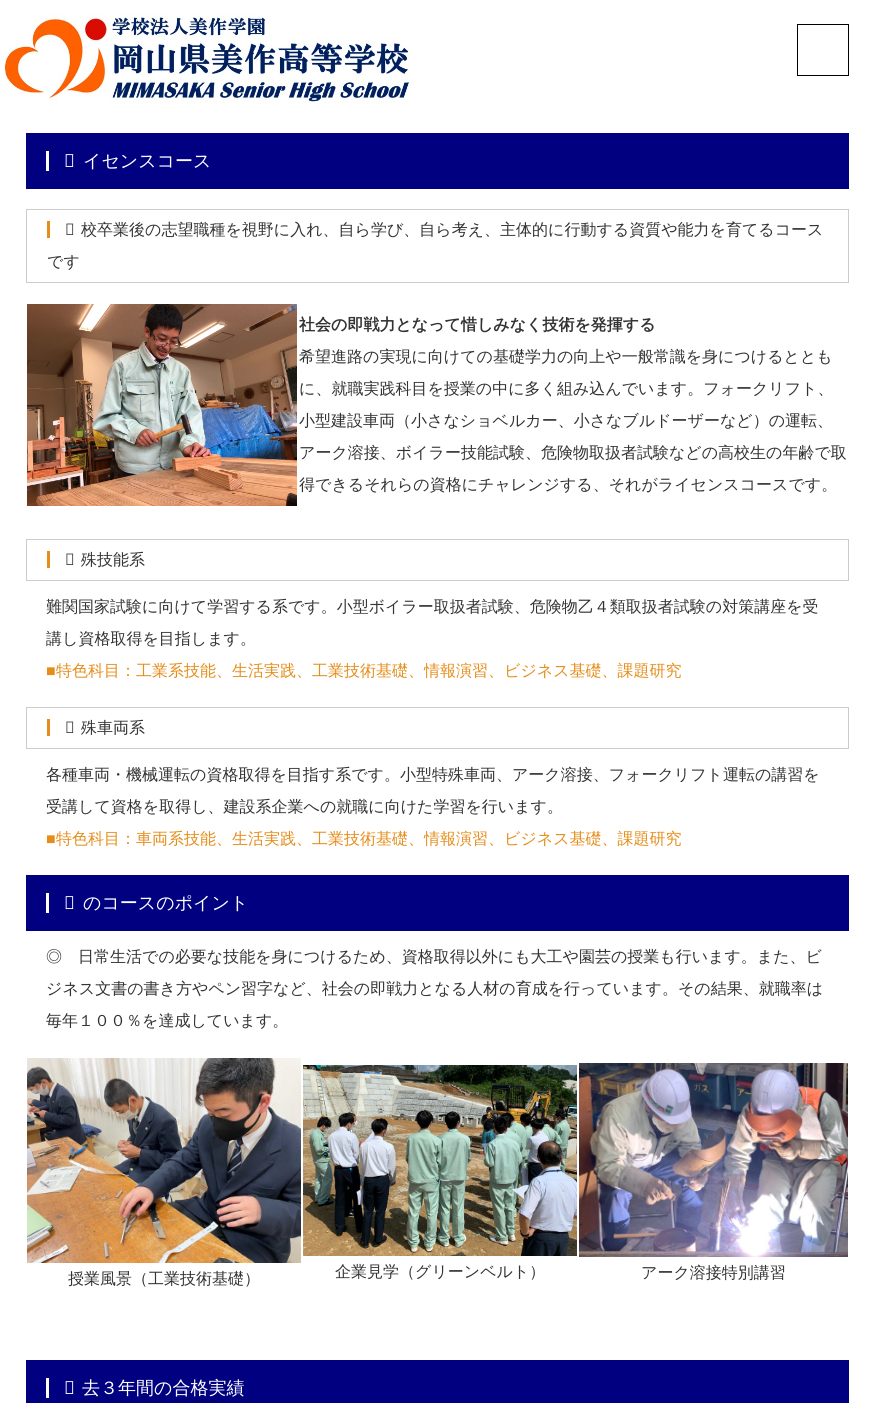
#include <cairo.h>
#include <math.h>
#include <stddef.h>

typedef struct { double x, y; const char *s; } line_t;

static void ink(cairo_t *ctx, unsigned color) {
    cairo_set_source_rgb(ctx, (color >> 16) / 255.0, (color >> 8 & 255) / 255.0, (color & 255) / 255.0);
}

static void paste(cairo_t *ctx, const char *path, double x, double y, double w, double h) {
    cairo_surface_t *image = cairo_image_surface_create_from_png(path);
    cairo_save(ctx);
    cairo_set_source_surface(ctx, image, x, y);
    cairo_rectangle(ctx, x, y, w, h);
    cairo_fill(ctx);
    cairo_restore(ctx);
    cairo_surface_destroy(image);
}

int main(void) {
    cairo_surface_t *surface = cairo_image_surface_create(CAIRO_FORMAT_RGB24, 875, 1403);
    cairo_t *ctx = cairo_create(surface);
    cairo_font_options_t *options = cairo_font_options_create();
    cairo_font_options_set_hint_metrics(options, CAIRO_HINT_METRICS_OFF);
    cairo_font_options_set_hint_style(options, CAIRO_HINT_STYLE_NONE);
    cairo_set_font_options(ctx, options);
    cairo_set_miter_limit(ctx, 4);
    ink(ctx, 0xFFFFFF);
    cairo_paint(ctx);
    paste(ctx, "media/1.png", 1, 13, 409, 91);
    cairo_rectangle(ctx, 797.5, 24.5, 51, 51);
    ink(ctx, 0x000000);
    cairo_set_line_width(ctx, 1);
    cairo_stroke(ctx);
    ink(ctx, 0x000080);
    cairo_rectangle(ctx, 26, 133, 823, 56);
    cairo_fill(ctx);
    cairo_select_font_face(ctx, "Noto Sans", CAIRO_FONT_SLANT_NORMAL, CAIRO_FONT_WEIGHT_NORMAL);
    cairo_set_font_size(ctx, 18);
    ink(ctx, 0xFFFFFF);
    cairo_move_to(ctx, 64, 167);
    cairo_show_text(ctx, "ラ");
    cairo_rectangle(ctx, 46, 151, 3, 20);
    cairo_fill(ctx);
    cairo_select_font_face(ctx, "WenQuanYi Zen Hei Medium", CAIRO_FONT_SLANT_NORMAL, CAIRO_FONT_WEIGHT_NORMAL);
    cairo_move_to(ctx, 83, 167);
    cairo_show_text(ctx, "イセンスコース");
    cairo_rectangle(ctx, 26.5, 209.5, 822, 73);
    ink(ctx, 0xCCCCCC);
    cairo_stroke(ctx);
    cairo_select_font_face(ctx, "Noto Sans", CAIRO_FONT_SLANT_NORMAL, CAIRO_FONT_WEIGHT_NORMAL);
    cairo_set_font_size(ctx, 16);
    ink(ctx, 0x333333);
    cairo_move_to(ctx, 65, 235);
    cairo_show_text(ctx, "高");
    ink(ctx, 0xE58D1B);
    cairo_rectangle(ctx, 47, 221, 3, 17);
    cairo_fill(ctx);
    cairo_select_font_face(ctx, "WenQuanYi Zen Hei Medium", CAIRO_FONT_SLANT_NORMAL, CAIRO_FONT_WEIGHT_NORMAL);
    ink(ctx, 0x333333);
    cairo_move_to(ctx, 81, 235);
    cairo_show_text(ctx, "校卒業後の志望職種を視野に入れ、自ら学び、自ら考え、主体的に行動する資質や能力を育てるコース");
    cairo_move_to(ctx, 47, 267);
    cairo_show_text(ctx, "です");
    paste(ctx, "media/2.png", 27, 304, 270, 202);
    cairo_select_font_face(ctx, "WenQuanYi Zen Hei", CAIRO_FONT_SLANT_NORMAL, CAIRO_FONT_WEIGHT_BOLD);
    cairo_move_to(ctx, 299, 330);
    cairo_show_text(ctx, "社会の即戦力となって惜しみなく技術を発揮する");
    cairo_select_font_face(ctx, "WenQuanYi Zen Hei Medium", CAIRO_FONT_SLANT_NORMAL, CAIRO_FONT_WEIGHT_NORMAL);
    {
        static const line_t items[] = {
            {299, 362, "希望進路の実現に向けての基礎学力の向上や一般常識を身につけるととも"},
            {299, 394, "に、就職実践科目を授業の中に多く組み込んでいます。フォークリフト、"},
            {299, 426, "小型建設車両（小さなショベルカー、小さなブルドーザーなど）の運転、"},
            {299, 458, "アーク溶接、ボイラー技能試験、危険物取扱者試験などの高校生の年齢で取"},
            {299, 490, "得できるそれらの資格にチャレンジする、それがライセンスコースです。"},
        };
        for (size_t i = 0; i < sizeof items / sizeof *items; i++) {
            cairo_move_to(ctx, items[i].x, items[i].y);
            cairo_show_text(ctx, items[i].s);
        }
    }
    cairo_rectangle(ctx, 26.5, 539.5, 822, 41);
    ink(ctx, 0xCCCCCC);
    cairo_stroke(ctx);
    cairo_select_font_face(ctx, "Noto Sans", CAIRO_FONT_SLANT_NORMAL, CAIRO_FONT_WEIGHT_NORMAL);
    ink(ctx, 0x333333);
    cairo_move_to(ctx, 65, 565);
    cairo_show_text(ctx, "特");
    ink(ctx, 0xE58D1B);
    cairo_rectangle(ctx, 47, 551, 3, 17);
    cairo_fill(ctx);
    cairo_select_font_face(ctx, "WenQuanYi Zen Hei Medium", CAIRO_FONT_SLANT_NORMAL, CAIRO_FONT_WEIGHT_NORMAL);
    ink(ctx, 0x333333);
    {
        static const line_t items[] = {
            {81, 565, "殊技能系"},
            {46, 612, "難関国家試験に向けて学習する系です。小型ボイラー取扱者試験、危険物乙４類取扱者試験の対策講座を受"},
            {46, 644, "講し資格取得を目指します。"},
        };
        for (size_t i = 0; i < sizeof items / sizeof *items; i++) {
            cairo_move_to(ctx, items[i].x, items[i].y);
            cairo_show_text(ctx, items[i].s);
        }
    }
    cairo_select_font_face(ctx, "Liberation Sans", CAIRO_FONT_SLANT_NORMAL, CAIRO_FONT_WEIGHT_NORMAL);
    ink(ctx, 0xE58D1B);
    cairo_move_to(ctx, 46, 676);
    cairo_show_text(ctx, "■");
    cairo_select_font_face(ctx, "WenQuanYi Zen Hei Medium", CAIRO_FONT_SLANT_NORMAL, CAIRO_FONT_WEIGHT_NORMAL);
    cairo_move_to(ctx, 56, 676);
    cairo_show_text(ctx, "特色科目：工業系技能、生活実践、工業技術基礎、情報演習、ビジネス基礎、課題研究");
    cairo_rectangle(ctx, 26.5, 707.5, 822, 41);
    ink(ctx, 0xCCCCCC);
    cairo_stroke(ctx);
    cairo_select_font_face(ctx, "Noto Sans", CAIRO_FONT_SLANT_NORMAL, CAIRO_FONT_WEIGHT_NORMAL);
    ink(ctx, 0x333333);
    cairo_move_to(ctx, 65, 733);
    cairo_show_text(ctx, "特");
    ink(ctx, 0xE58D1B);
    cairo_rectangle(ctx, 47, 719, 3, 17);
    cairo_fill(ctx);
    cairo_select_font_face(ctx, "WenQuanYi Zen Hei Medium", CAIRO_FONT_SLANT_NORMAL, CAIRO_FONT_WEIGHT_NORMAL);
    ink(ctx, 0x333333);
    {
        static const line_t items[] = {
            {81, 733, "殊車両系"},
            {46, 780, "各種車両・機械運転の資格取得を目指す系です。小型特殊車両、アーク溶接、フォークリフト運転の講習を"},
            {46, 812, "受講して資格を取得し、建設系企業への就職に向けた学習を行います。"},
        };
        for (size_t i = 0; i < sizeof items / sizeof *items; i++) {
            cairo_move_to(ctx, items[i].x, items[i].y);
            cairo_show_text(ctx, items[i].s);
        }
    }
    cairo_select_font_face(ctx, "Liberation Sans", CAIRO_FONT_SLANT_NORMAL, CAIRO_FONT_WEIGHT_NORMAL);
    ink(ctx, 0xE58D1B);
    cairo_move_to(ctx, 46, 844);
    cairo_show_text(ctx, "■");
    cairo_select_font_face(ctx, "WenQuanYi Zen Hei Medium", CAIRO_FONT_SLANT_NORMAL, CAIRO_FONT_WEIGHT_NORMAL);
    cairo_move_to(ctx, 56, 844);
    cairo_show_text(ctx, "特色科目：車両系技能、生活実践、工業技術基礎、情報演習、ビジネス基礎、課題研究");
    ink(ctx, 0x000080);
    cairo_rectangle(ctx, 26, 875, 823, 56);
    cairo_fill(ctx);
    cairo_select_font_face(ctx, "Noto Sans", CAIRO_FONT_SLANT_NORMAL, CAIRO_FONT_WEIGHT_NORMAL);
    cairo_set_font_size(ctx, 18);
    ink(ctx, 0xFFFFFF);
    cairo_move_to(ctx, 64, 909);
    cairo_show_text(ctx, "こ");
    cairo_rectangle(ctx, 46, 893, 3, 20);
    cairo_fill(ctx);
    cairo_select_font_face(ctx, "WenQuanYi Zen Hei Medium", CAIRO_FONT_SLANT_NORMAL, CAIRO_FONT_WEIGHT_NORMAL);
    cairo_move_to(ctx, 83, 909);
    cairo_show_text(ctx, "のコースのポイント");
    cairo_set_font_size(ctx, 16);
    ink(ctx, 0x333333);
    {
        static const line_t items[] = {
            {46, 962, "◎　日常生活での必要な技能を身につけるため、資格取得以外にも大工や園芸の授業も行います。また、ビ"},
            {46, 994, "ジネス文書の書き方やペン習字など、社会の即戦力となる人材の育成を行っています。その結果、就職率は"},
            {46, 1026, "毎年１００％を達成しています。"},
        };
        for (size_t i = 0; i < sizeof items / sizeof *items; i++) {
            cairo_move_to(ctx, items[i].x, items[i].y);
            cairo_show_text(ctx, items[i].s);
        }
    }
    paste(ctx, "media/3.png", 27, 1058, 274, 205);
    cairo_move_to(ctx, 68, 1284);
    cairo_show_text(ctx, "授業風景（工業技術基礎）");
    paste(ctx, "media/4.png", 303, 1065, 274, 191);
    cairo_move_to(ctx, 335, 1277);
    cairo_show_text(ctx, "企業見学（グリーンベルト）");
    paste(ctx, "media/5.png", 579, 1063, 269, 194);
    cairo_move_to(ctx, 641, 1278);
    cairo_show_text(ctx, "アーク溶接特別講習");
    ink(ctx, 0x000080);
    cairo_rectangle(ctx, 26, 1360, 823, 43);
    cairo_fill(ctx);
    cairo_select_font_face(ctx, "Noto Sans", CAIRO_FONT_SLANT_NORMAL, CAIRO_FONT_WEIGHT_NORMAL);
    cairo_set_font_size(ctx, 18);
    ink(ctx, 0xFFFFFF);
    cairo_move_to(ctx, 64, 1394);
    cairo_show_text(ctx, "過");
    cairo_rectangle(ctx, 46, 1378, 3, 20);
    cairo_fill(ctx);
    cairo_select_font_face(ctx, "WenQuanYi Zen Hei Medium", CAIRO_FONT_SLANT_NORMAL, CAIRO_FONT_WEIGHT_NORMAL);
    cairo_move_to(ctx, 82, 1394);
    cairo_show_text(ctx, "去３年間の合格実績");
    cairo_surface_write_to_png(surface, "image.png");
    cairo_font_options_destroy(options);
    cairo_destroy(ctx);
    cairo_surface_destroy(surface);
    return 0;
}
